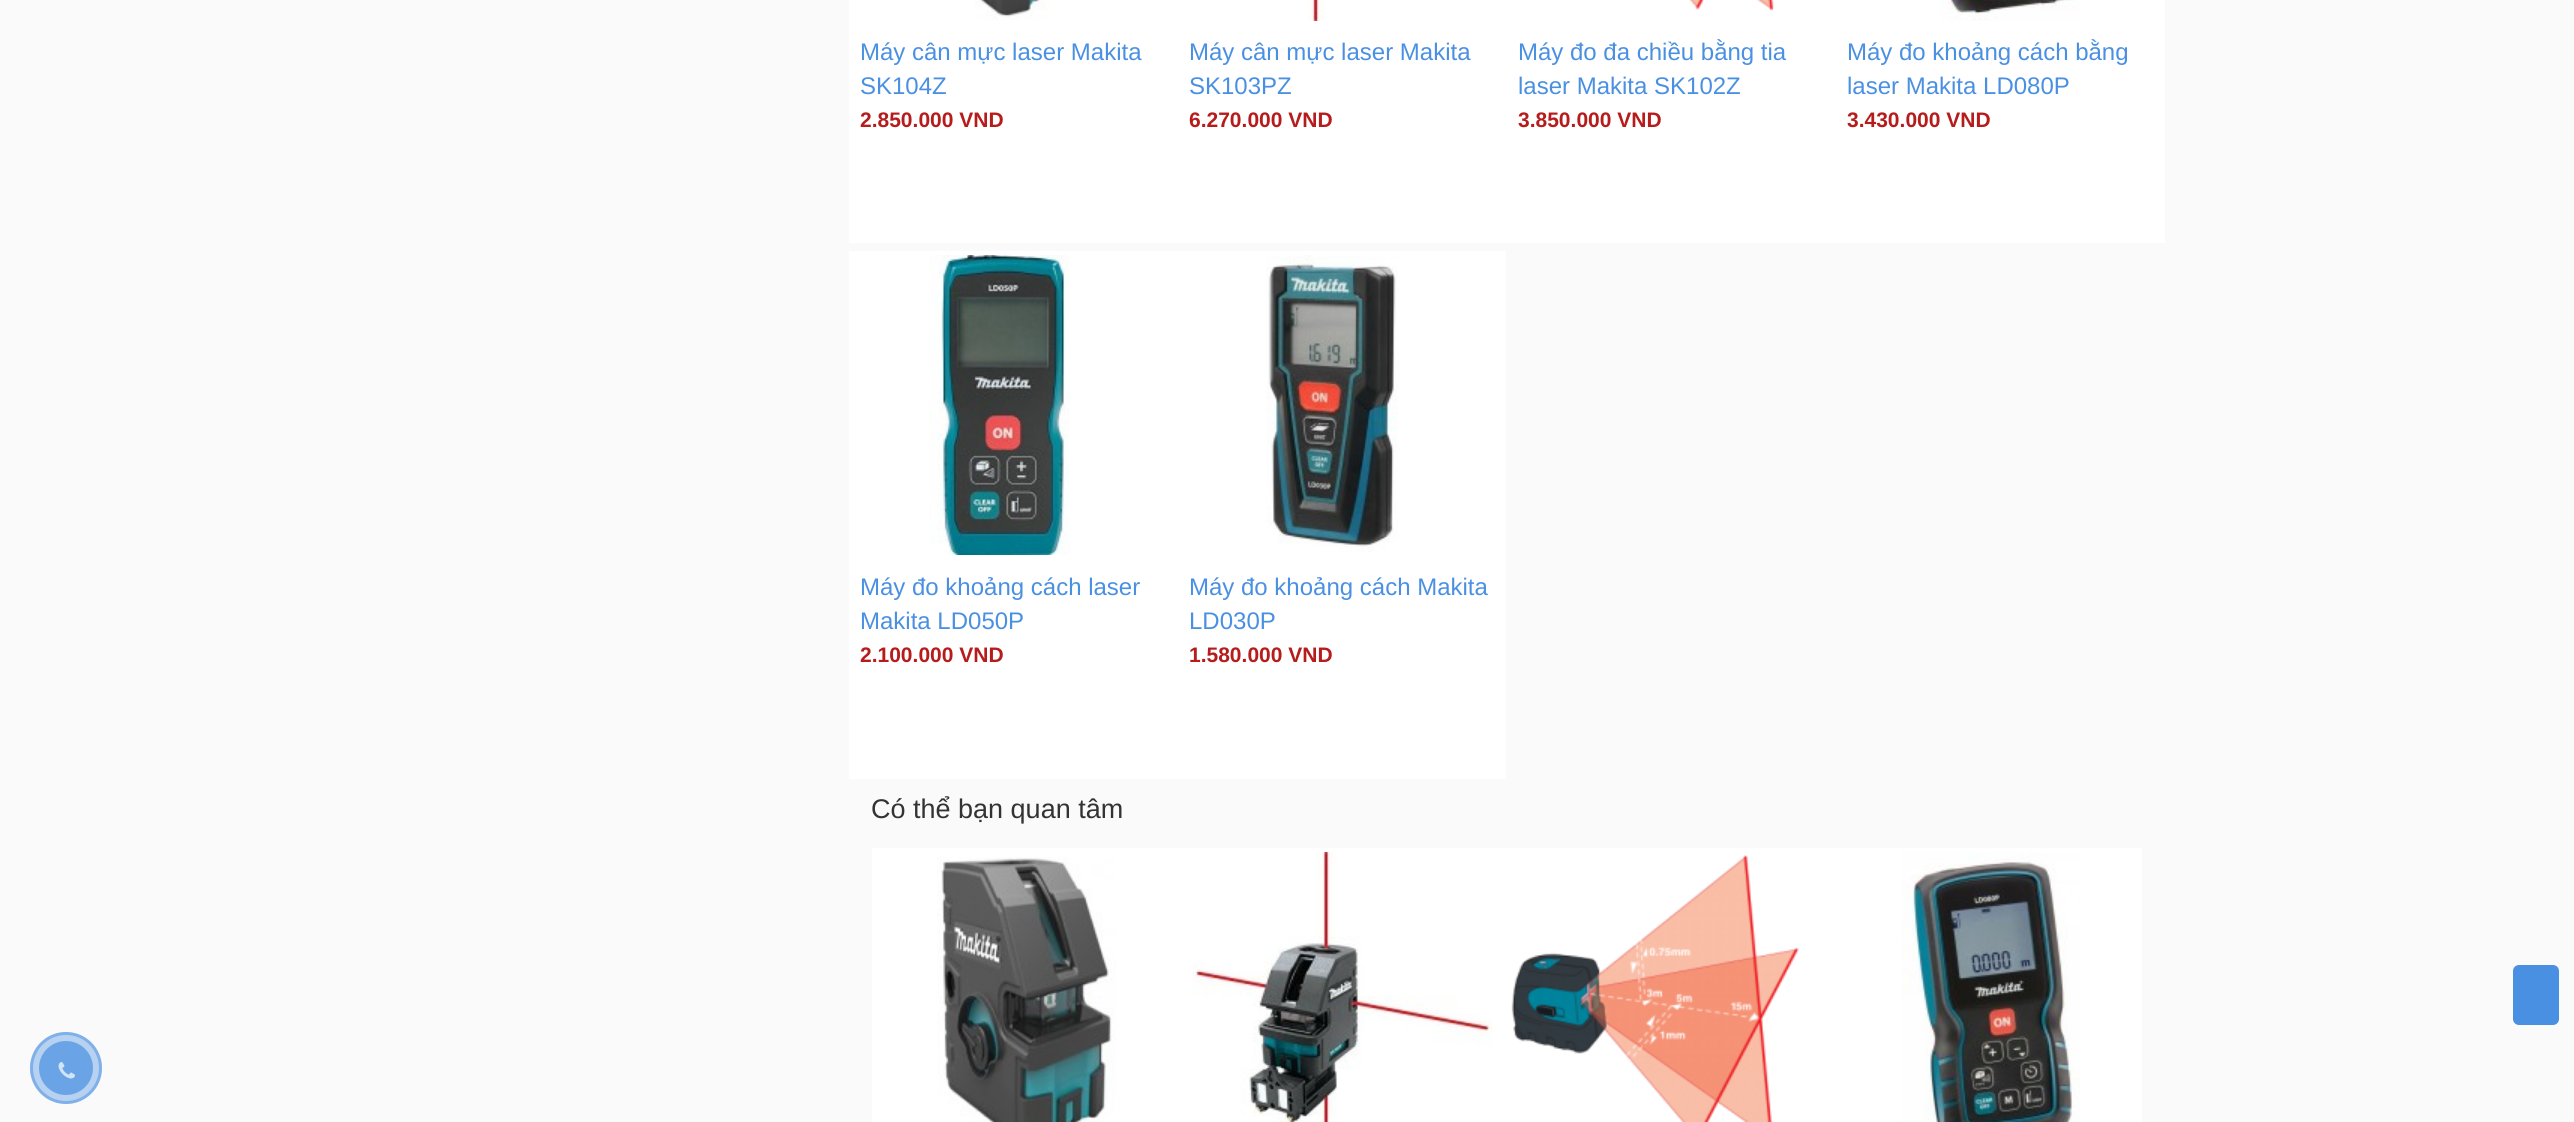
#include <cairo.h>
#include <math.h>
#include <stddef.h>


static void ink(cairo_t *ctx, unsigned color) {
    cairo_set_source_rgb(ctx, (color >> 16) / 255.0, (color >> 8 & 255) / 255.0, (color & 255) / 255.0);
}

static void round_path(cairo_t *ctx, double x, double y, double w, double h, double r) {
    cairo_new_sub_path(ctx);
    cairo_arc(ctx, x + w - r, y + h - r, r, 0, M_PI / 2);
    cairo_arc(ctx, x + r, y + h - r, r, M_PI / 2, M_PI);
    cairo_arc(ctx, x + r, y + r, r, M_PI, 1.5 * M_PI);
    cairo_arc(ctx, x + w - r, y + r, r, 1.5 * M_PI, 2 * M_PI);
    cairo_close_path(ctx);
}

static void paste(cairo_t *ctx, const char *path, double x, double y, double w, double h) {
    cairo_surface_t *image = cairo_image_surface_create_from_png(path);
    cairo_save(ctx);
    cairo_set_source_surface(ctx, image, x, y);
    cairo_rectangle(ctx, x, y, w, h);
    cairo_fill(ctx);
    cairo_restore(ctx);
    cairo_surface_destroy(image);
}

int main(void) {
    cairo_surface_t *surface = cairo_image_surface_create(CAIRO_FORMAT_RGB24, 2574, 1122);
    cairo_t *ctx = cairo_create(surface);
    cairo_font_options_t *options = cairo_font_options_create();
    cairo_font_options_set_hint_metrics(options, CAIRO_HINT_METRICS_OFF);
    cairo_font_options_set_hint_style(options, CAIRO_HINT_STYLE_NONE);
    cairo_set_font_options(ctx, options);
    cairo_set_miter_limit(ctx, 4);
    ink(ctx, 0xFAFAFA);
    cairo_paint(ctx);
    ink(ctx, 0xFFFFFF);
    cairo_rectangle(ctx, 849, 0, 1316, 243);
    cairo_fill(ctx);
    paste(ctx, "media/1.png", 975, 0, 74, 20);
    cairo_select_font_face(ctx, "Liberation Sans", CAIRO_FONT_SLANT_NORMAL, CAIRO_FONT_WEIGHT_NORMAL);
    cairo_set_font_size(ctx, 24);
    ink(ctx, 0x4A90E2);
    cairo_move_to(ctx, 860, 60);
    cairo_show_text(ctx, "Máy cân mực laser Makita");
    cairo_move_to(ctx, 860, 94);
    cairo_show_text(ctx, "SK104Z");
    cairo_select_font_face(ctx, "Liberation Sans", CAIRO_FONT_SLANT_NORMAL, CAIRO_FONT_WEIGHT_BOLD);
    cairo_set_font_size(ctx, 21);
    ink(ctx, 0xB71C1C);
    cairo_move_to(ctx, 860, 127);
    cairo_show_text(ctx, "2.850.000 VND");
    paste(ctx, "media/2.png", 1308, 0, 18, 21);
    cairo_select_font_face(ctx, "Liberation Sans", CAIRO_FONT_SLANT_NORMAL, CAIRO_FONT_WEIGHT_NORMAL);
    cairo_set_font_size(ctx, 24);
    ink(ctx, 0x4A90E2);
    cairo_move_to(ctx, 1189, 60);
    cairo_show_text(ctx, "Máy cân mực laser Makita");
    cairo_move_to(ctx, 1189, 94);
    cairo_show_text(ctx, "SK103PZ");
    cairo_select_font_face(ctx, "Liberation Sans", CAIRO_FONT_SLANT_NORMAL, CAIRO_FONT_WEIGHT_BOLD);
    cairo_set_font_size(ctx, 21);
    ink(ctx, 0xB71C1C);
    cairo_move_to(ctx, 1189, 127);
    cairo_show_text(ctx, "6.270.000 VND");
    paste(ctx, "media/3.png", 1689, 0, 85, 11);
    cairo_select_font_face(ctx, "Liberation Sans", CAIRO_FONT_SLANT_NORMAL, CAIRO_FONT_WEIGHT_NORMAL);
    cairo_set_font_size(ctx, 24);
    ink(ctx, 0x4A90E2);
    cairo_move_to(ctx, 1518, 60);
    cairo_show_text(ctx, "Máy đo đa chiều bằng tia");
    cairo_move_to(ctx, 1518, 94);
    cairo_show_text(ctx, "laser Makita SK102Z");
    cairo_select_font_face(ctx, "Liberation Sans", CAIRO_FONT_SLANT_NORMAL, CAIRO_FONT_WEIGHT_BOLD);
    cairo_set_font_size(ctx, 21);
    ink(ctx, 0xB71C1C);
    cairo_move_to(ctx, 1518, 127);
    cairo_show_text(ctx, "3.850.000 VND");
    paste(ctx, "media/4.png", 1940, 0, 140, 21);
    cairo_select_font_face(ctx, "Liberation Sans", CAIRO_FONT_SLANT_NORMAL, CAIRO_FONT_WEIGHT_NORMAL);
    cairo_set_font_size(ctx, 24);
    ink(ctx, 0x4A90E2);
    cairo_move_to(ctx, 1847, 60);
    cairo_show_text(ctx, "Máy đo khoảng cách bằng");
    cairo_move_to(ctx, 1847, 94);
    cairo_show_text(ctx, "laser Makita LD080P");
    cairo_select_font_face(ctx, "Liberation Sans", CAIRO_FONT_SLANT_NORMAL, CAIRO_FONT_WEIGHT_BOLD);
    cairo_set_font_size(ctx, 21);
    ink(ctx, 0xB71C1C);
    cairo_move_to(ctx, 1847, 127);
    cairo_show_text(ctx, "3.430.000 VND");
    ink(ctx, 0xFFFFFF);
    cairo_rectangle(ctx, 849, 251, 657, 528);
    cairo_fill(ctx);
    paste(ctx, "media/5.png", 929, 255, 141, 300);
    cairo_select_font_face(ctx, "Liberation Sans", CAIRO_FONT_SLANT_NORMAL, CAIRO_FONT_WEIGHT_NORMAL);
    cairo_set_font_size(ctx, 24);
    ink(ctx, 0x4A90E2);
    cairo_move_to(ctx, 860, 595);
    cairo_show_text(ctx, "Máy đo khoảng cách laser");
    cairo_move_to(ctx, 860, 629);
    cairo_show_text(ctx, "Makita LD050P");
    cairo_select_font_face(ctx, "Liberation Sans", CAIRO_FONT_SLANT_NORMAL, CAIRO_FONT_WEIGHT_BOLD);
    cairo_set_font_size(ctx, 21);
    ink(ctx, 0xB71C1C);
    cairo_move_to(ctx, 860, 662);
    cairo_show_text(ctx, "2.100.000 VND");
    paste(ctx, "media/6.png", 1266, 255, 132, 297);
    cairo_select_font_face(ctx, "Liberation Sans", CAIRO_FONT_SLANT_NORMAL, CAIRO_FONT_WEIGHT_NORMAL);
    cairo_set_font_size(ctx, 24);
    ink(ctx, 0x4A90E2);
    cairo_move_to(ctx, 1189, 595);
    cairo_show_text(ctx, "Máy đo khoảng cách Makita");
    cairo_move_to(ctx, 1189, 629);
    cairo_show_text(ctx, "LD030P");
    cairo_select_font_face(ctx, "Liberation Sans", CAIRO_FONT_SLANT_NORMAL, CAIRO_FONT_WEIGHT_BOLD);
    cairo_set_font_size(ctx, 21);
    ink(ctx, 0xB71C1C);
    cairo_move_to(ctx, 1189, 662);
    cairo_show_text(ctx, "1.580.000 VND");
    cairo_select_font_face(ctx, "Liberation Sans", CAIRO_FONT_SLANT_NORMAL, CAIRO_FONT_WEIGHT_NORMAL);
    cairo_set_font_size(ctx, 27);
    ink(ctx, 0x333333);
    cairo_move_to(ctx, 871, 818);
    cairo_show_text(ctx, "Có thể bạn quan tâm");
    ink(ctx, 0xFFFFFF);
    cairo_rectangle(ctx, 872, 848, 1270, 274);
    cairo_fill(ctx);
    paste(ctx, "media/7.png", 937, 857, 179, 265);
    paste(ctx, "media/8.png", 1192, 852, 301, 270);
    paste(ctx, "media/9.png", 1511, 855, 288, 267);
    paste(ctx, "media/10.png", 1901, 852, 179, 270);
    ink(ctx, 0x4A90E2);
    round_path(ctx, 2513, 965, 46, 60, 6);
    cairo_fill(ctx);
    cairo_arc(ctx, 66, 1068, 34.5, 0, 2 * M_PI);
    ink(ctx, 0xA2C5EE);
    cairo_set_line_width(ctx, 3);
    cairo_stroke(ctx);
    cairo_set_source_rgba(ctx, 0.29, 0.565, 0.886, 0.38);
    cairo_arc(ctx, 66, 1068, 36, 0, 2 * M_PI);
    cairo_fill(ctx);
    ink(ctx, 0x6BA4E6);
    cairo_arc(ctx, 66, 1068, 27, 0, 2 * M_PI);
    cairo_fill(ctx);
    paste(ctx, "media/11.png", 58, 1062, 17, 17);
    cairo_surface_write_to_png(surface, "image.png");
    cairo_font_options_destroy(options);
    cairo_destroy(ctx);
    cairo_surface_destroy(surface);
    return 0;
}
